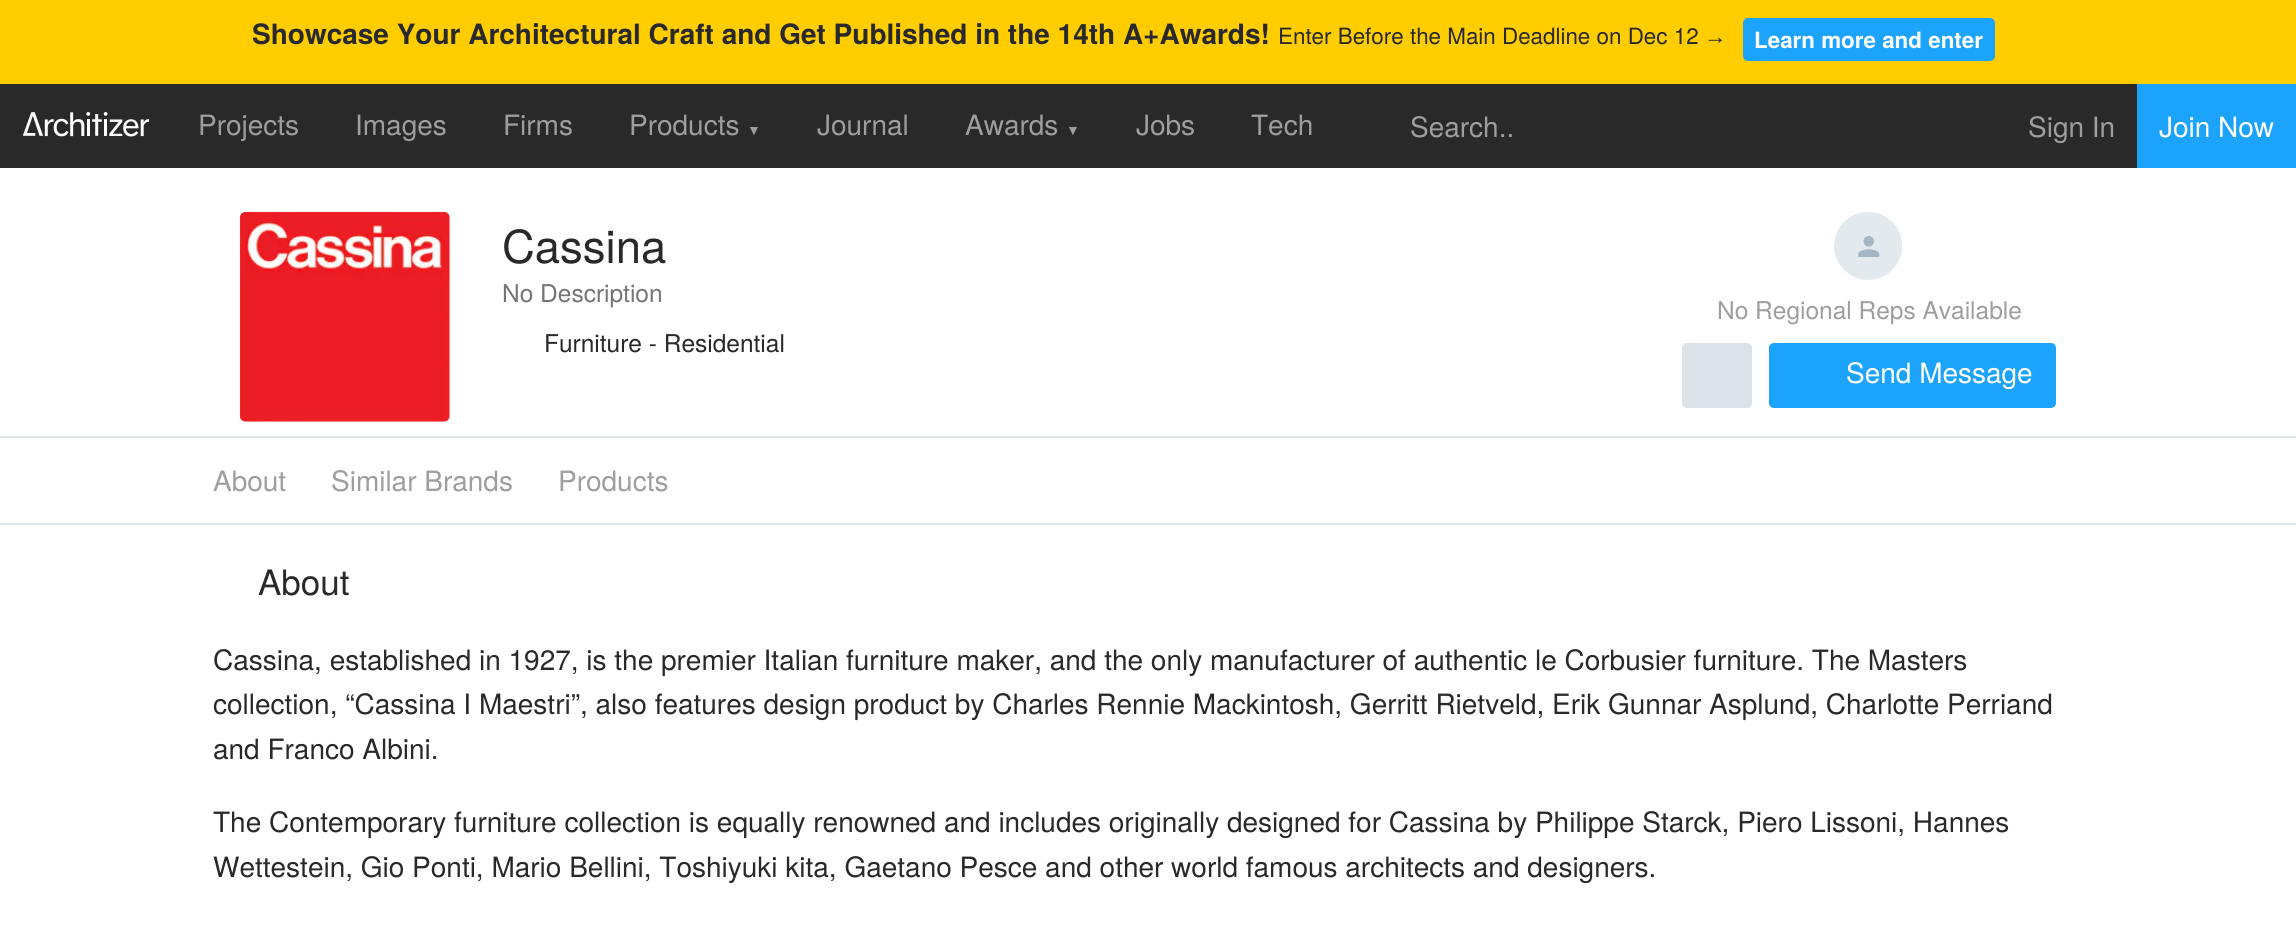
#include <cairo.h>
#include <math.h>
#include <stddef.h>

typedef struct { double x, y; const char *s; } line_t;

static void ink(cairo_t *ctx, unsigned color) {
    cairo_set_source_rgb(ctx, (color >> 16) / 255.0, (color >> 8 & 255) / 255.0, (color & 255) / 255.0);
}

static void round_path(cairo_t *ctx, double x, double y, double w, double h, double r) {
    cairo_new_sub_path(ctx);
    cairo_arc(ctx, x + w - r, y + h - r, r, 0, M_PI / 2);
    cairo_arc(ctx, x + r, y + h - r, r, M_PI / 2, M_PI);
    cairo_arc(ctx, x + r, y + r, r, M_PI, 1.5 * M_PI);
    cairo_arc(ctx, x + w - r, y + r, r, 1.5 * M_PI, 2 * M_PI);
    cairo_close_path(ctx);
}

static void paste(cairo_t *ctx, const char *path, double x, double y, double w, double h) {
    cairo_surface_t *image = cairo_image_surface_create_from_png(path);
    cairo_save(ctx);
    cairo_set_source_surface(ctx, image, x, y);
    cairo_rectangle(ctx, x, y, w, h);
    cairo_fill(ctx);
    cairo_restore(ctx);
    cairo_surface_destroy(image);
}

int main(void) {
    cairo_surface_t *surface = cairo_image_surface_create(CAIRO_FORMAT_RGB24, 2296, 932);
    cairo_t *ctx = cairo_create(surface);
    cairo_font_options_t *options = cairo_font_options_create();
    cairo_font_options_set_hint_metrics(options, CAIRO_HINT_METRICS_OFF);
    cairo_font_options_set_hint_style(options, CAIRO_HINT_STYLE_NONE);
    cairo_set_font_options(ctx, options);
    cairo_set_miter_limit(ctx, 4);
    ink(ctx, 0xFFFFFF);
    cairo_paint(ctx);
    ink(ctx, 0xFFCD00);
    cairo_rectangle(ctx, 0, 0, 2296, 84);
    cairo_fill(ctx);
    cairo_select_font_face(ctx, "TeX Gyre Heros", CAIRO_FONT_SLANT_NORMAL, CAIRO_FONT_WEIGHT_BOLD);
    cairo_set_font_size(ctx, 28);
    ink(ctx, 0x292929);
    cairo_move_to(ctx, 252, 44);
    cairo_show_text(ctx, "Showcase Your Architectural Craft and Get Published in the 14th A+Awards!");
    cairo_select_font_face(ctx, "TeX Gyre Heros", CAIRO_FONT_SLANT_NORMAL, CAIRO_FONT_WEIGHT_NORMAL);
    cairo_set_font_size(ctx, 22.4);
    cairo_move_to(ctx, 1278, 44);
    cairo_show_text(ctx, "Enter Before the Main Deadline on Dec 12");
    cairo_select_font_face(ctx, "Liberation Sans", CAIRO_FONT_SLANT_NORMAL, CAIRO_FONT_WEIGHT_NORMAL);
    cairo_move_to(ctx, 1704, 44);
    cairo_show_text(ctx, "→");
    ink(ctx, 0x1CA3FC);
    round_path(ctx, 1743, 18, 252, 43, 5);
    cairo_fill(ctx);
    cairo_select_font_face(ctx, "TeX Gyre Heros", CAIRO_FONT_SLANT_NORMAL, CAIRO_FONT_WEIGHT_BOLD);
    ink(ctx, 0xFFFFFF);
    cairo_move_to(ctx, 1754, 48);
    cairo_show_text(ctx, "Learn more and enter");
    ink(ctx, 0x292929);
    cairo_rectangle(ctx, 0, 84, 2137, 84);
    cairo_fill(ctx);
    paste(ctx, "media/1.png", 23, 112, 126, 25);
    cairo_select_font_face(ctx, "TeX Gyre Heros", CAIRO_FONT_SLANT_NORMAL, CAIRO_FONT_WEIGHT_NORMAL);
    cairo_set_font_size(ctx, 28);
    ink(ctx, 0x9E9E9E);
    {
        static const line_t items[] = {
            {198, 135, "Projects"},
            {355, 135, "Images"},
            {503, 135, "Firms"},
            {629, 135, "Products"},
        };
        for (size_t i = 0; i < sizeof items / sizeof *items; i++) {
            cairo_move_to(ctx, items[i].x, items[i].y);
            cairo_show_text(ctx, items[i].s);
        }
    }
    cairo_select_font_face(ctx, "Liberation Sans", CAIRO_FONT_SLANT_NORMAL, CAIRO_FONT_WEIGHT_NORMAL);
    cairo_set_font_size(ctx, 14);
    cairo_move_to(ctx, 747, 135);
    cairo_show_text(ctx, "▼");
    cairo_select_font_face(ctx, "TeX Gyre Heros", CAIRO_FONT_SLANT_NORMAL, CAIRO_FONT_WEIGHT_NORMAL);
    cairo_set_font_size(ctx, 28);
    cairo_move_to(ctx, 817, 135);
    cairo_show_text(ctx, "Journal");
    cairo_move_to(ctx, 965, 135);
    cairo_show_text(ctx, "Awards");
    cairo_select_font_face(ctx, "Liberation Sans", CAIRO_FONT_SLANT_NORMAL, CAIRO_FONT_WEIGHT_NORMAL);
    cairo_set_font_size(ctx, 14);
    cairo_move_to(ctx, 1066, 135);
    cairo_show_text(ctx, "▼");
    cairo_select_font_face(ctx, "TeX Gyre Heros", CAIRO_FONT_SLANT_NORMAL, CAIRO_FONT_WEIGHT_NORMAL);
    cairo_set_font_size(ctx, 28);
    {
        static const line_t items[] = {
            {1136, 135, "Jobs"},
            {1251, 135, "Tech"},
            {1410, 137, "Search.."},
            {2028, 137, "Sign In"},
        };
        for (size_t i = 0; i < sizeof items / sizeof *items; i++) {
            cairo_move_to(ctx, items[i].x, items[i].y);
            cairo_show_text(ctx, items[i].s);
        }
    }
    ink(ctx, 0x1CA3FC);
    cairo_rectangle(ctx, 2137, 84, 159, 84);
    cairo_fill(ctx);
    ink(ctx, 0xFFFFFF);
    cairo_move_to(ctx, 2159, 137);
    cairo_show_text(ctx, "Join Now");
    paste(ctx, "media/2.png", 239, 211, 211, 211);
    cairo_set_font_size(ctx, 45.5);
    ink(ctx, 0x292929);
    cairo_move_to(ctx, 502, 263);
    cairo_show_text(ctx, "Cassina");
    cairo_set_font_size(ctx, 24.5);
    ink(ctx, 0x757575);
    cairo_move_to(ctx, 502, 302);
    cairo_show_text(ctx, "No Description");
    ink(ctx, 0x292929);
    cairo_move_to(ctx, 544, 352);
    cairo_show_text(ctx, "Furniture - Residential");
    paste(ctx, "media/3.png", 1834, 212, 68, 68);
    ink(ctx, 0x9E9E9E);
    cairo_move_to(ctx, 1717, 319);
    cairo_show_text(ctx, "No Regional Reps Available");
    ink(ctx, 0xDBE2E8);
    round_path(ctx, 1682, 343, 70, 65, 5);
    cairo_fill(ctx);
    ink(ctx, 0x1CA3FC);
    round_path(ctx, 1769, 343, 287, 65, 5);
    cairo_fill(ctx);
    cairo_set_font_size(ctx, 28);
    ink(ctx, 0xFFFFFF);
    cairo_move_to(ctx, 1846, 383);
    cairo_show_text(ctx, "Send Message");
    ink(ctx, 0xE1E7EB);
    cairo_rectangle(ctx, 0, 436, 2296, 2);
    cairo_fill(ctx);
    cairo_rectangle(ctx, 0, 523, 2296, 2);
    cairo_fill(ctx);
    ink(ctx, 0x9E9E9E);
    {
        static const line_t items[] = {
            {213, 491, "About"},
            {331, 491, "Similar Brands"},
            {558, 491, "Products"},
        };
        for (size_t i = 0; i < sizeof items / sizeof *items; i++) {
            cairo_move_to(ctx, items[i].x, items[i].y);
            cairo_show_text(ctx, items[i].s);
        }
    }
    cairo_set_font_size(ctx, 35);
    ink(ctx, 0x292929);
    cairo_move_to(ctx, 258, 595);
    cairo_show_text(ctx, "About");
    cairo_set_font_size(ctx, 28);
    {
        static const line_t items[] = {
            {213, 670, "Cassina, established in 1927, is the premier Italian furniture maker, and the only manufacturer of authentic le Corbusier furniture. The Masters"},
            {213, 714, "collection, “Cassina I Maestri”, also features design product by Charles Rennie Mackintosh, Gerritt Rietveld, Erik Gunnar Asplund, Charlotte Perriand"},
            {213, 759, "and Franco Albini."},
            {213, 832, "The Contemporary furniture collection is equally renowned and includes originally designed for Cassina by Philippe Starck, Piero Lissoni, Hannes"},
            {213, 877, "Wettestein, Gio Ponti, Mario Bellini, Toshiyuki kita, Gaetano Pesce and other world famous architects and designers."},
        };
        for (size_t i = 0; i < sizeof items / sizeof *items; i++) {
            cairo_move_to(ctx, items[i].x, items[i].y);
            cairo_show_text(ctx, items[i].s);
        }
    }
    cairo_surface_write_to_png(surface, "image.png");
    cairo_font_options_destroy(options);
    cairo_destroy(ctx);
    cairo_surface_destroy(surface);
    return 0;
}
